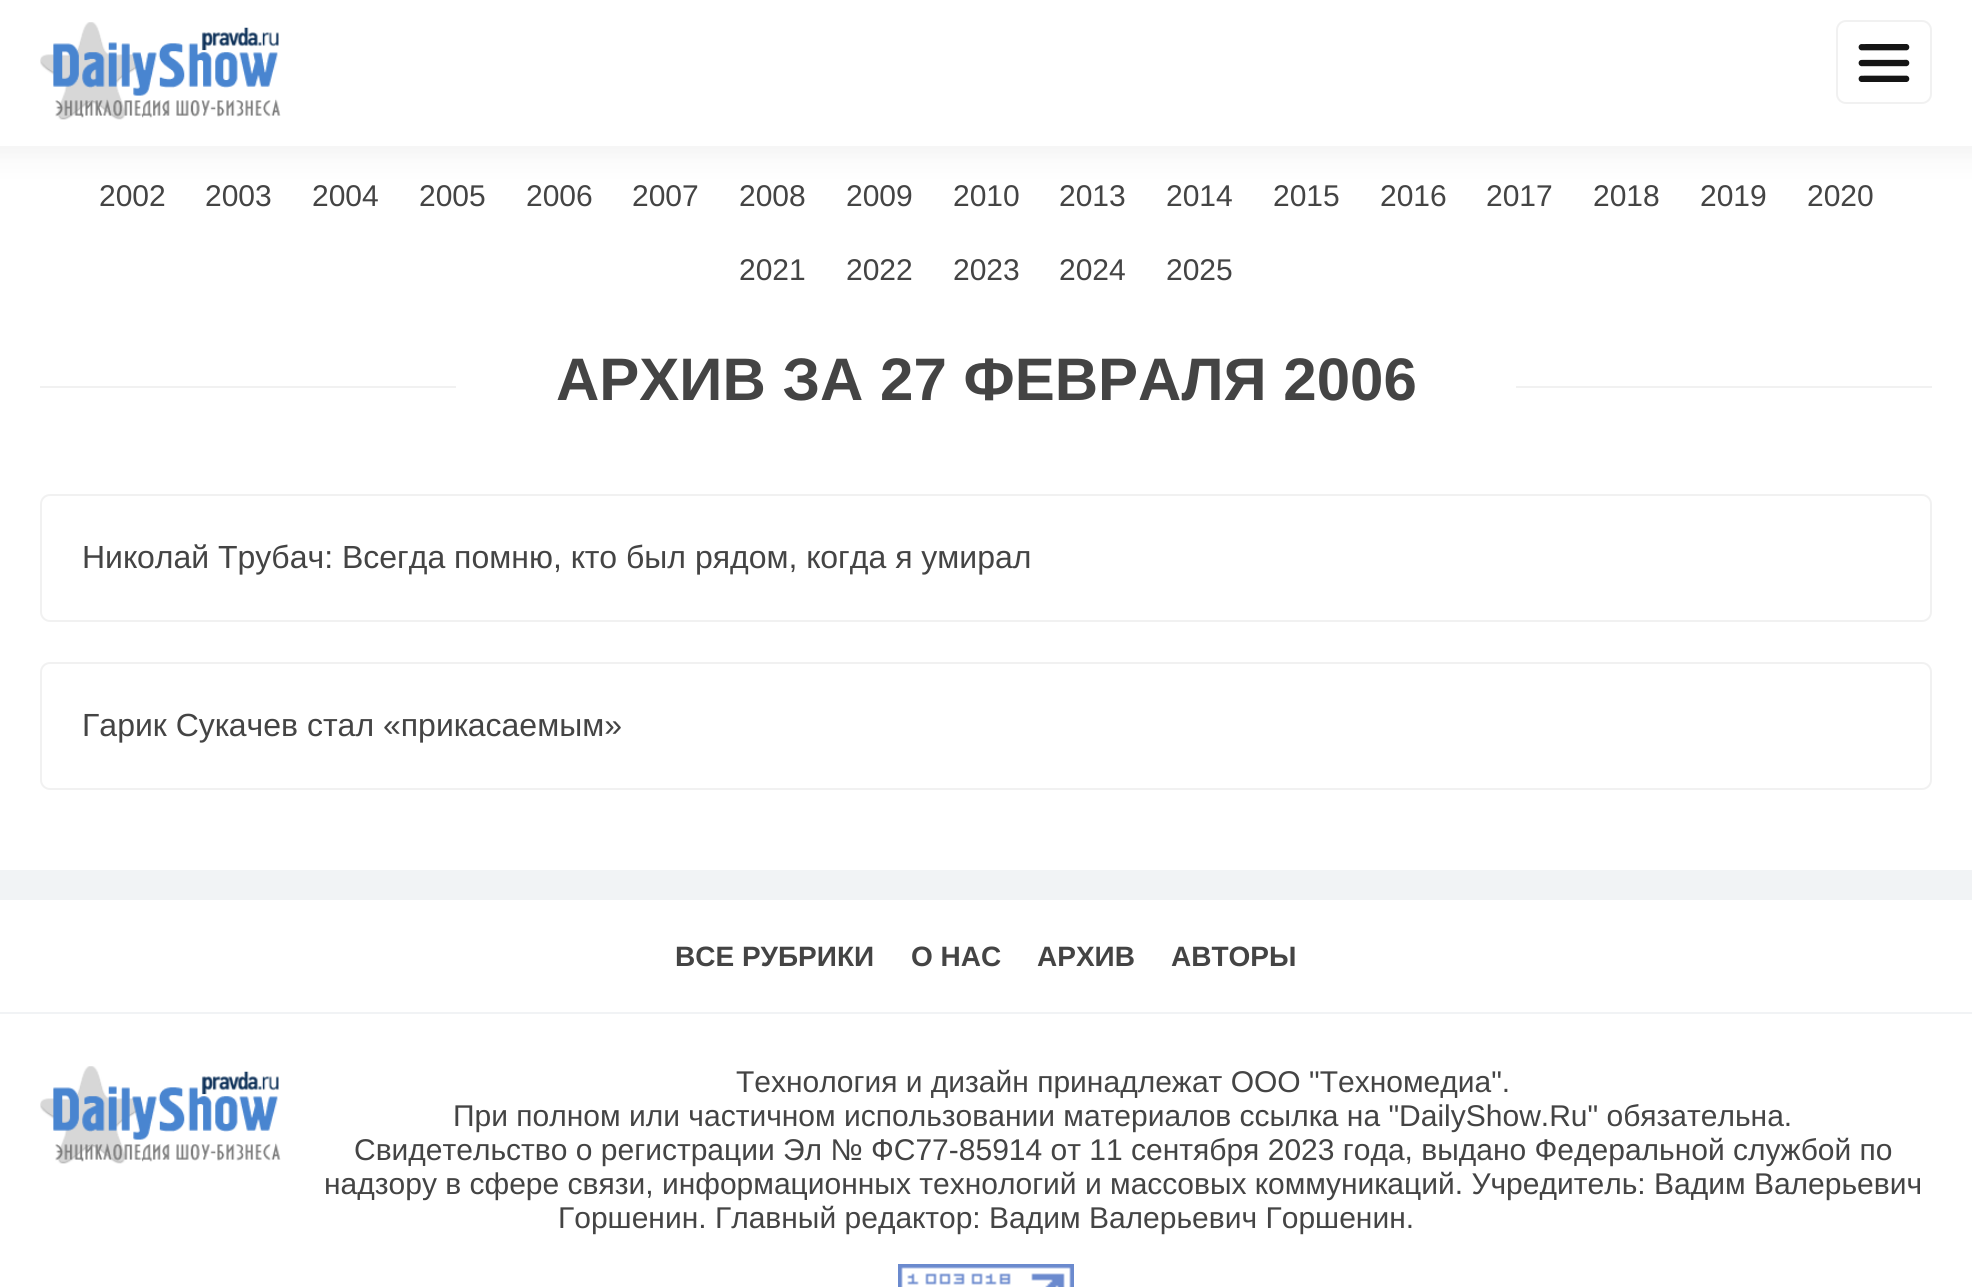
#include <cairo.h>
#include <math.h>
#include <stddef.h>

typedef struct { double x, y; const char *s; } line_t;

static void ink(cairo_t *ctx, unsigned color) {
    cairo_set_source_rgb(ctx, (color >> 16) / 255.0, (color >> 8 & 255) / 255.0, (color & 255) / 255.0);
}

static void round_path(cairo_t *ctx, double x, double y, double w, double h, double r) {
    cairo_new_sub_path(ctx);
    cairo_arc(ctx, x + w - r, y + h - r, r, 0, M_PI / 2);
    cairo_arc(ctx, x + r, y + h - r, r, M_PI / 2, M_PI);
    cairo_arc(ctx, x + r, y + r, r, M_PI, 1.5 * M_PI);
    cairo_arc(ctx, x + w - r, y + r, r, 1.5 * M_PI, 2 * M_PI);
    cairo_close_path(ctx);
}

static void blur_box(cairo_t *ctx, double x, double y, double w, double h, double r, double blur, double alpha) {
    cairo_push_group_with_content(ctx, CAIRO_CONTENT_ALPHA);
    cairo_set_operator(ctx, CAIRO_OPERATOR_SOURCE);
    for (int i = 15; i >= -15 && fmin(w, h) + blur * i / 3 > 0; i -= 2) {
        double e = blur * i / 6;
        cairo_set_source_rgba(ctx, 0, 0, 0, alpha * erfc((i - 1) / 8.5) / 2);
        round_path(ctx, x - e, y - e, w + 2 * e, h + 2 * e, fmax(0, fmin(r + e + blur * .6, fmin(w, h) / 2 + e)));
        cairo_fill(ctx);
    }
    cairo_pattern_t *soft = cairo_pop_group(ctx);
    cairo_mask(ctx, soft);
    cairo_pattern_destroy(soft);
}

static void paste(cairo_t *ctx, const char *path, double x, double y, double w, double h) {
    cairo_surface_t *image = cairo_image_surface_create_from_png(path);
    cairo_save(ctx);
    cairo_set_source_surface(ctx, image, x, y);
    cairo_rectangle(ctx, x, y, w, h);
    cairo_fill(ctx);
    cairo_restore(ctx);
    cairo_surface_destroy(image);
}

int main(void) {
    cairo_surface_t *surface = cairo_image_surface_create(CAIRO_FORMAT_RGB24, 1972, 1287);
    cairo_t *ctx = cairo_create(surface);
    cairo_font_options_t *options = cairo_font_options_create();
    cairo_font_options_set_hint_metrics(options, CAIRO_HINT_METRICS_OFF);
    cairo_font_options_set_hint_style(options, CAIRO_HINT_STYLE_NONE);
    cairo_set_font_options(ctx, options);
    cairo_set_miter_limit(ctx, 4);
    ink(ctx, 0xF1F3F5);
    cairo_paint(ctx);
    ink(ctx, 0xFFFFFF);
    cairo_rectangle(ctx, 0, 146, 1972, 724);
    cairo_fill(ctx);
    ink(ctx, 0x000000);
    blur_box(ctx, -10, -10, 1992, 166, 0, 15, 0.05);
    ink(ctx, 0xFFFFFF);
    cairo_rectangle(ctx, 0, 0, 1972, 146);
    cairo_fill(ctx);
    paste(ctx, "media/1.png", 40, 22, 241, 98);
    round_path(ctx, 1837, 21, 94, 82, 9);
    ink(ctx, 0xF1F1F1);
    cairo_stroke(ctx);
    paste(ctx, "media/2.png", 1858, 44, 52, 38);
    cairo_select_font_face(ctx, "Liberation Sans", CAIRO_FONT_SLANT_NORMAL, CAIRO_FONT_WEIGHT_NORMAL);
    cairo_set_font_size(ctx, 30);
    ink(ctx, 0x444444);
    {
        static const line_t items[] = {
            {99, 206, "2002"},
            {205, 206, "2003"},
            {312, 206, "2004"},
            {419, 206, "2005"},
            {526, 206, "2006"},
            {632, 206, "2007"},
            {739, 206, "2008"},
            {846, 206, "2009"},
            {953, 206, "2010"},
            {1059, 206, "2013"},
            {1166, 206, "2014"},
            {1273, 206, "2015"},
            {1380, 206, "2016"},
            {1486, 206, "2017"},
            {1593, 206, "2018"},
            {1700, 206, "2019"},
            {1807, 206, "2020"},
            {739, 280, "2021"},
            {846, 280, "2022"},
            {953, 280, "2023"},
            {1059, 280, "2024"},
            {1166, 280, "2025"},
        };
        for (size_t i = 0; i < sizeof items / sizeof *items; i++) {
            cairo_move_to(ctx, items[i].x, items[i].y);
            cairo_show_text(ctx, items[i].s);
        }
    }
    ink(ctx, 0xF1F1F1);
    cairo_rectangle(ctx, 40, 386, 1892, 2);
    cairo_fill(ctx);
    ink(ctx, 0xFFFFFF);
    cairo_rectangle(ctx, 456, 386, 1060, 2);
    cairo_fill(ctx);
    cairo_select_font_face(ctx, "Liberation Sans", CAIRO_FONT_SLANT_NORMAL, CAIRO_FONT_WEIGHT_BOLD);
    cairo_set_font_size(ctx, 60);
    ink(ctx, 0x444444);
    cairo_move_to(ctx, 556, 400);
    cairo_show_text(ctx, "АРХИВ ЗА 27 ФЕВРАЛЯ 2006");
    round_path(ctx, 41, 495, 1890, 126, 9);
    ink(ctx, 0xF1F1F1);
    cairo_stroke(ctx);
    cairo_select_font_face(ctx, "Liberation Sans", CAIRO_FONT_SLANT_NORMAL, CAIRO_FONT_WEIGHT_NORMAL);
    cairo_set_font_size(ctx, 32);
    ink(ctx, 0x444444);
    cairo_move_to(ctx, 82, 568);
    cairo_show_text(ctx, "Николай Трубач: Всегда помню, кто был рядом, когда я умирал");
    round_path(ctx, 41, 663, 1890, 126, 9);
    ink(ctx, 0xF1F1F1);
    cairo_stroke(ctx);
    ink(ctx, 0x444444);
    cairo_move_to(ctx, 82, 736);
    cairo_show_text(ctx, "Гарик Сукачев стал «прикасаемым»");
    ink(ctx, 0xFFFFFF);
    cairo_rectangle(ctx, 0, 900, 1972, 387);
    cairo_fill(ctx);
    ink(ctx, 0xF1F3F5);
    cairo_rectangle(ctx, 0, 1012, 1972, 2);
    cairo_fill(ctx);
    cairo_select_font_face(ctx, "Liberation Sans", CAIRO_FONT_SLANT_NORMAL, CAIRO_FONT_WEIGHT_BOLD);
    cairo_set_font_size(ctx, 28);
    ink(ctx, 0x444444);
    {
        static const line_t items[] = {
            {675, 966, "ВСЕ РУБРИКИ"},
            {911, 966, "О НАС"},
            {1037, 966, "АРХИВ"},
            {1171, 966, "АВТОРЫ"},
        };
        for (size_t i = 0; i < sizeof items / sizeof *items; i++) {
            cairo_move_to(ctx, items[i].x, items[i].y);
            cairo_show_text(ctx, items[i].s);
        }
    }
    paste(ctx, "media/3.png", 40, 1066, 241, 98);
    cairo_select_font_face(ctx, "Liberation Sans", CAIRO_FONT_SLANT_NORMAL, CAIRO_FONT_WEIGHT_NORMAL);
    cairo_set_font_size(ctx, 30);
    {
        static const line_t items[] = {
            {736, 1092, "Технология и дизайн принадлежат ООО \"Техномедиа\"."},
            {453, 1126, "При полном или частичном использовании материалов ссылка на \"DailyShow.Ru\" обязательна."},
            {354, 1160, "Свидетельство о регистрации Эл № ФС77-85914 от 11 сентября 2023 года, выдано Федеральной службой по"},
            {324, 1194, "надзору в сфере связи, информационных технологий и массовых коммуникаций. Учредитель: Вадим Валерьевич"},
            {558, 1228, "Горшенин. Главный редактор: Вадим Валерьевич Горшенин."},
        };
        for (size_t i = 0; i < sizeof items / sizeof *items; i++) {
            cairo_move_to(ctx, items[i].x, items[i].y);
            cairo_show_text(ctx, items[i].s);
        }
    }
    paste(ctx, "media/4.png", 898, 1264, 176, 23);
    cairo_surface_write_to_png(surface, "image.png");
    cairo_font_options_destroy(options);
    cairo_destroy(ctx);
    cairo_surface_destroy(surface);
    return 0;
}
